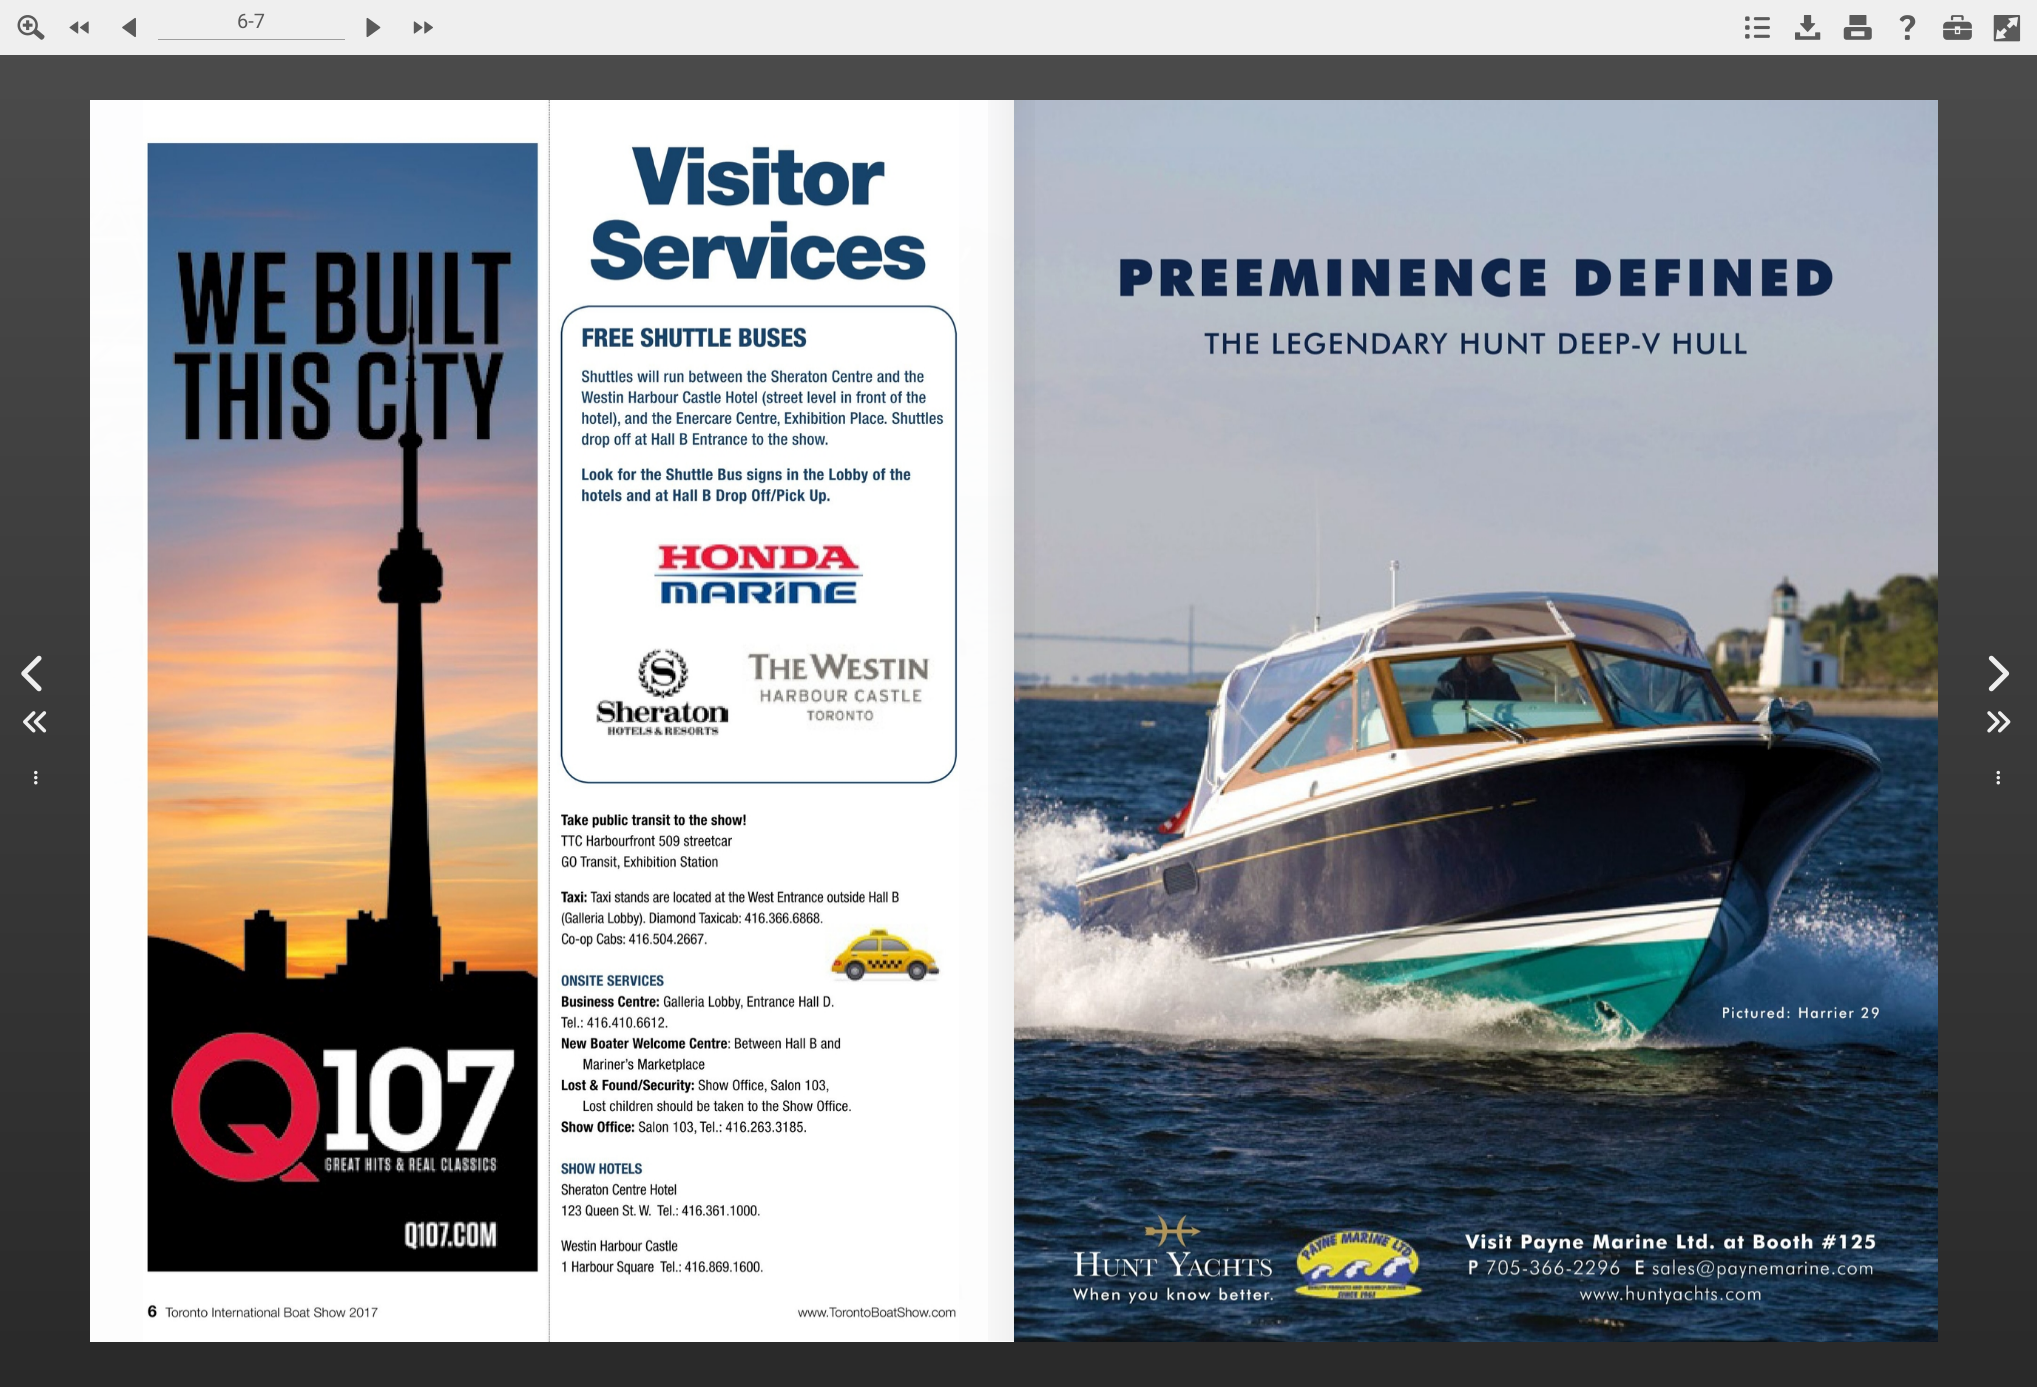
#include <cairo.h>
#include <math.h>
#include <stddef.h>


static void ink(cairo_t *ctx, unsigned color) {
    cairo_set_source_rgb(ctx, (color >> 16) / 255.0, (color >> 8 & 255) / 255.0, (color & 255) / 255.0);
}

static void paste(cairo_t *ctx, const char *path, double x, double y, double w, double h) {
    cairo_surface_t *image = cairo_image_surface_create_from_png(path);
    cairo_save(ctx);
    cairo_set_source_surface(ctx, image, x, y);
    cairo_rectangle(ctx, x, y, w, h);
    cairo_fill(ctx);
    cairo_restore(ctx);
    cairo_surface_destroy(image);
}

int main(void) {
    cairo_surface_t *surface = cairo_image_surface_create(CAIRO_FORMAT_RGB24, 2037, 1387);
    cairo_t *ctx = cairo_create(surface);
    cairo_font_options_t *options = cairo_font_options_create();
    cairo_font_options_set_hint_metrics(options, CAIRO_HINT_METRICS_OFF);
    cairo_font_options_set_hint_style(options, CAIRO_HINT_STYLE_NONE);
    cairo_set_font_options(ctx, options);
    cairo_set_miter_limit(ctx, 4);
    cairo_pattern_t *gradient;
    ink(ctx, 0xFFFFFF);
    cairo_paint(ctx);
    gradient = cairo_pattern_create_linear(1019, 0, 1019, 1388);
    cairo_pattern_add_color_stop_rgba(gradient, 0, 0.298, 0.298, 0.298, 1);
    cairo_pattern_add_color_stop_rgba(gradient, 1, 0.161, 0.161, 0.161, 1);
    cairo_set_source(ctx, gradient);
    cairo_pattern_destroy(gradient);
    cairo_rectangle(ctx, 0, 55, 2037, 1332);
    cairo_fill(ctx);
    ink(ctx, 0xEFEFEF);
    cairo_rectangle(ctx, 0, 0, 2037, 55);
    cairo_fill(ctx);
    paste(ctx, "media/1.png", 17, 15, 28, 25);
    paste(ctx, "media/2.png", 69, 21, 20, 13);
    paste(ctx, "media/3.png", 122, 17, 14, 21);
    ink(ctx, 0x9E9E9E);
    cairo_rectangle(ctx, 158, 39, 187, 1);
    cairo_fill(ctx);
    cairo_select_font_face(ctx, "Roboto", CAIRO_FONT_SLANT_NORMAL, CAIRO_FONT_WEIGHT_NORMAL);
    cairo_set_font_size(ctx, 20);
    ink(ctx, 0x5A5A5A);
    cairo_move_to(ctx, 237, 28);
    cairo_show_text(ctx, "6-7");
    paste(ctx, "media/4.png", 366, 17, 15, 21);
    paste(ctx, "media/5.png", 413, 21, 20, 13);
    paste(ctx, "media/6.png", 1745, 16, 25, 23);
    paste(ctx, "media/7.png", 1795, 15, 26, 25);
    paste(ctx, "media/8.png", 1843, 15, 29, 25);
    paste(ctx, "media/9.png", 1899, 15, 17, 25);
    paste(ctx, "media/10.png", 1943, 15, 29, 25);
    paste(ctx, "media/11.png", 1993, 15, 28, 27);
    paste(ctx, "media/12.png", 21, 655, 21, 37);
    paste(ctx, "media/13.png", 23, 711, 24, 22);
    paste(ctx, "media/14.png", 34, 770, 4, 15);
    paste(ctx, "media/15.png", 90, 100, 924, 1242);
    paste(ctx, "media/17.png", 144, 100, 815, 1242);
    paste(ctx, "media/16.png", 143, 100, 816, 1242);
    gradient = cairo_pattern_create_linear(90, 722, 1014, 722);
    cairo_pattern_add_color_stop_rgba(gradient, 0.95, 0, 0, 0, 0);
    cairo_pattern_add_color_stop_rgba(gradient, 1, 0, 0, 0, 0.05);
    cairo_set_source(ctx, gradient);
    cairo_pattern_destroy(gradient);
    cairo_rectangle(ctx, 988, 100, 26, 1241);
    cairo_fill(ctx);
    paste(ctx, "media/18.png", 1014, 100, 924, 1242);
    paste(ctx, "media/19.png", 1014, 100, 924, 1242);
    paste(ctx, "media/20.png", 1014, 147, 924, 1195);
    gradient = cairo_pattern_create_linear(1938, 722, 1014, 722);
    cairo_pattern_add_color_stop_rgba(gradient, 0.95, 0, 0, 0, 0);
    cairo_pattern_add_color_stop_rgba(gradient, 1, 0, 0, 0, 0.04);
    cairo_set_source(ctx, gradient);
    cairo_pattern_destroy(gradient);
    cairo_rectangle(ctx, 1014, 100, 21, 1237);
    cairo_fill(ctx);
    paste(ctx, "media/21.png", 1988, 655, 22, 37);
    paste(ctx, "media/22.png", 1987, 711, 24, 22);
    paste(ctx, "media/23.png", 1996, 770, 4, 15);
    cairo_surface_write_to_png(surface, "image.png");
    cairo_font_options_destroy(options);
    cairo_destroy(ctx);
    cairo_surface_destroy(surface);
    return 0;
}
